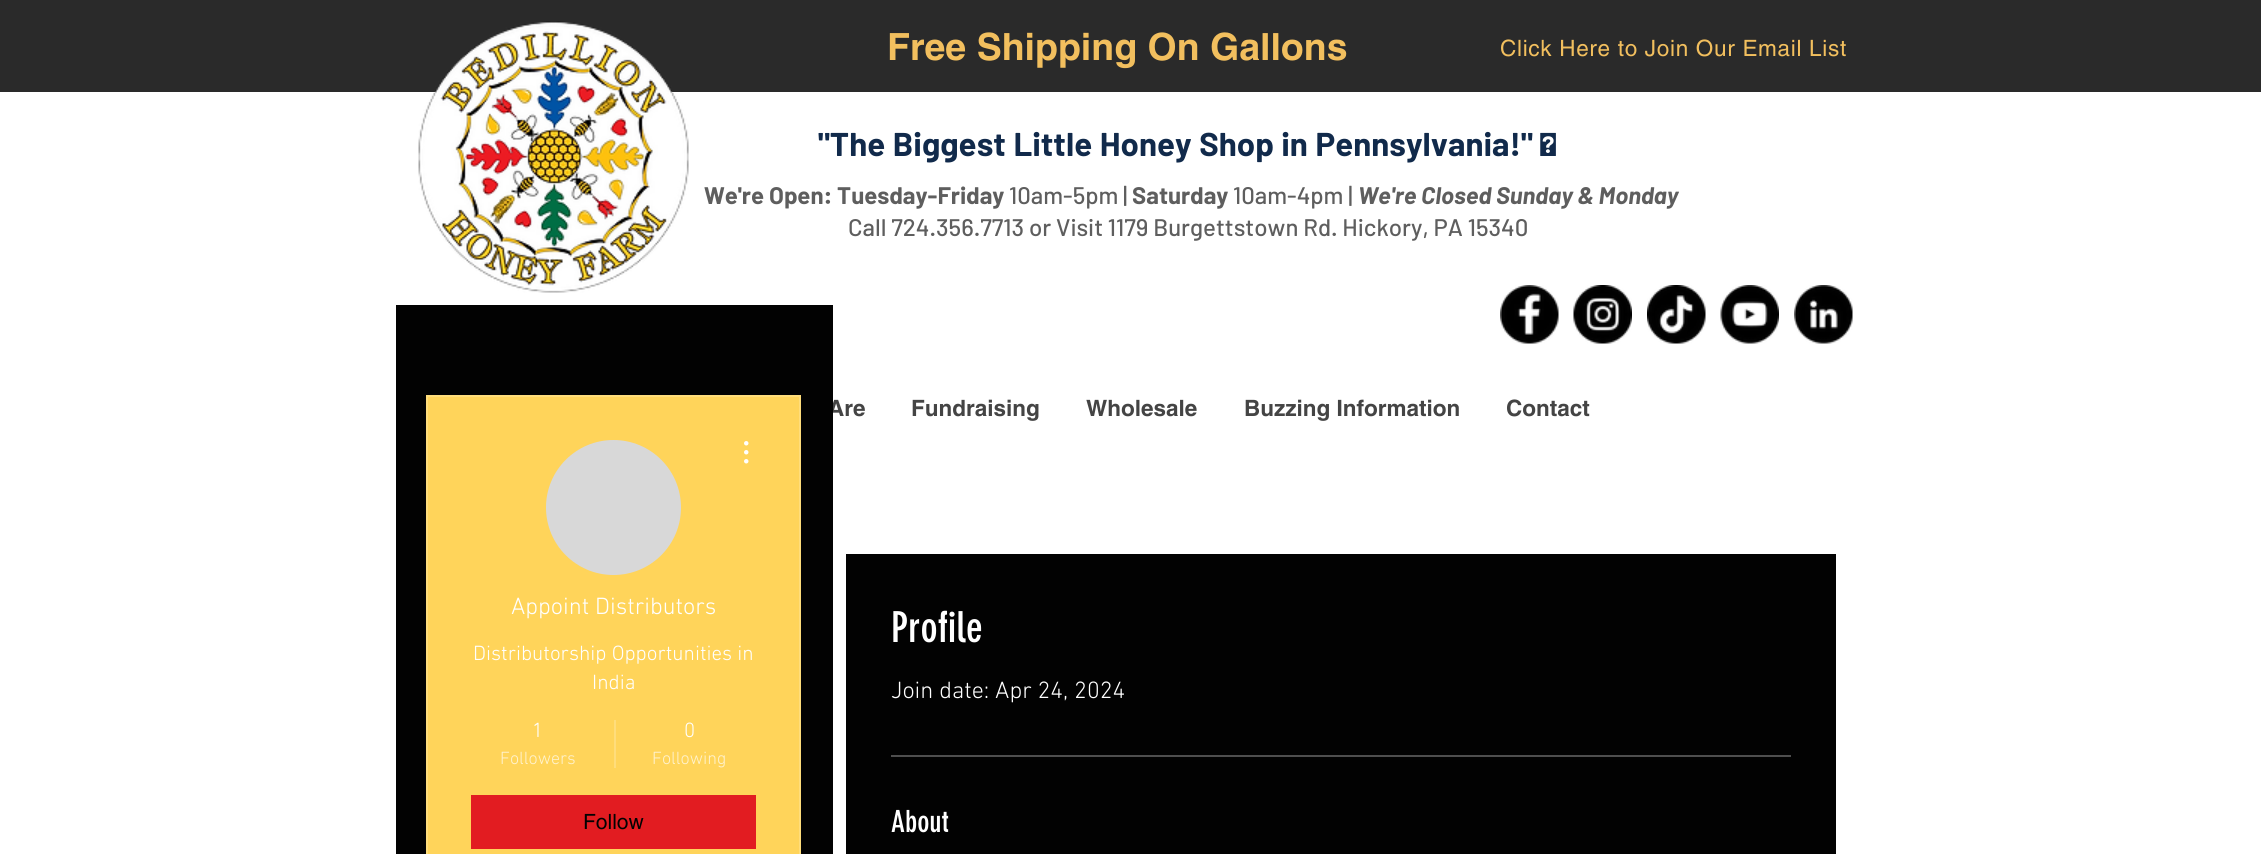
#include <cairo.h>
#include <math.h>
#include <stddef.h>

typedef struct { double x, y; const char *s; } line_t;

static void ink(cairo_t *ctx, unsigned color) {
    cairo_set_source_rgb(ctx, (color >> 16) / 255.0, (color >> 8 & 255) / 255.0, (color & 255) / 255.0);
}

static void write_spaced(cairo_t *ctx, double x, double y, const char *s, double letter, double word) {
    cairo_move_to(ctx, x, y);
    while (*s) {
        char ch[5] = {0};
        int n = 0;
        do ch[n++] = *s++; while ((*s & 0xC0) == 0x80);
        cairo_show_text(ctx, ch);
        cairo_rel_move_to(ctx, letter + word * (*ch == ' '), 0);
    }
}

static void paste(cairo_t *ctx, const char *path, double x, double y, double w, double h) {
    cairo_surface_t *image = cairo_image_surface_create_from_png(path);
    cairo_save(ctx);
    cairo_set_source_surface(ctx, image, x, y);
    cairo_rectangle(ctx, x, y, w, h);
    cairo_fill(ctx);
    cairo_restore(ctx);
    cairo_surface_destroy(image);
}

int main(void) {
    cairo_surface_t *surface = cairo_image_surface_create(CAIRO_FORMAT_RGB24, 2261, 854);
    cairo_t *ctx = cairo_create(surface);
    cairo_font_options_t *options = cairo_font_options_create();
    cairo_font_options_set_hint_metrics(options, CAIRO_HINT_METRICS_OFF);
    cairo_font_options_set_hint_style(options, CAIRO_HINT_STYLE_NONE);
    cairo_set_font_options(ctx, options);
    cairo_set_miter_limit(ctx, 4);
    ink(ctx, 0xFFFFFF);
    cairo_paint(ctx);
    ink(ctx, 0x2A2A2A);
    cairo_rectangle(ctx, 0, 0, 2261, 92);
    cairo_fill(ctx);
    paste(ctx, "media/1.png", 418, 21, 271, 272);
    cairo_select_font_face(ctx, "helvetica", CAIRO_FONT_SLANT_NORMAL, CAIRO_FONT_WEIGHT_BOLD);
    cairo_set_font_size(ctx, 37.5);
    ink(ctx, 0xF2BF5E);
    cairo_move_to(ctx, 887, 60);
    cairo_show_text(ctx, "Free Shipping On Gallons");
    cairo_select_font_face(ctx, "helvetica", CAIRO_FONT_SLANT_NORMAL, CAIRO_FONT_WEIGHT_NORMAL);
    cairo_set_font_size(ctx, 22.5);
    write_spaced(ctx, 1500, 56, "Click Here to Join Our Email List", 0.7, 0);
    cairo_select_font_face(ctx, "Barlow", CAIRO_FONT_SLANT_NORMAL, CAIRO_FONT_WEIGHT_BOLD);
    cairo_set_font_size(ctx, 33);
    ink(ctx, 0x112A4B);
    write_spaced(ctx, 818, 156, "\"The Biggest Little Honey Shop in Pennsylvania!\" ™", 0, 1);
    cairo_set_font_size(ctx, 24);
    ink(ctx, 0x5E5E5E);
    cairo_move_to(ctx, 704, 204);
    cairo_show_text(ctx, "We're Open: Tuesday-Friday");
    cairo_select_font_face(ctx, "Barlow Medium", CAIRO_FONT_SLANT_NORMAL, CAIRO_FONT_WEIGHT_NORMAL);
    cairo_move_to(ctx, 1009, 204);
    cairo_show_text(ctx, "10am-5pm |");
    cairo_select_font_face(ctx, "Barlow", CAIRO_FONT_SLANT_NORMAL, CAIRO_FONT_WEIGHT_BOLD);
    cairo_move_to(ctx, 1132, 204);
    cairo_show_text(ctx, "Saturday");
    cairo_select_font_face(ctx, "Barlow Medium", CAIRO_FONT_SLANT_NORMAL, CAIRO_FONT_WEIGHT_NORMAL);
    cairo_move_to(ctx, 1233, 204);
    cairo_show_text(ctx, "10am-4pm |");
    cairo_select_font_face(ctx, "Barlow", CAIRO_FONT_SLANT_ITALIC, CAIRO_FONT_WEIGHT_BOLD);
    cairo_move_to(ctx, 1358, 204);
    cairo_show_text(ctx, "We're Closed Sunday & Monday");
    cairo_select_font_face(ctx, "Barlow Medium", CAIRO_FONT_SLANT_NORMAL, CAIRO_FONT_WEIGHT_NORMAL);
    cairo_move_to(ctx, 848, 236);
    cairo_show_text(ctx, "Call 724.356.7713 or Visit 1179 Burgettstown Rd. Hickory, PA 15340");
    paste(ctx, "media/2.png", 1500, 285, 59, 59);
    paste(ctx, "media/3.png", 1573, 285, 59, 59);
    paste(ctx, "media/4.png", 1647, 285, 59, 59);
    paste(ctx, "media/5.png", 1720, 285, 59, 59);
    paste(ctx, "media/6.png", 1794, 285, 59, 59);
    cairo_select_font_face(ctx, "helvetica", CAIRO_FONT_SLANT_NORMAL, CAIRO_FONT_WEIGHT_BOLD);
    cairo_set_font_size(ctx, 22.5);
    ink(ctx, 0x444444);
    {
        static const line_t items[] = {
            {828, 416, "Are"},
            {911, 416, "Fundraising"},
            {1086, 416, "Wholesale"},
            {1244, 416, "Buzzing Information"},
            {1506, 416, "Contact"},
        };
        for (size_t i = 0; i < sizeof items / sizeof *items; i++) {
            cairo_move_to(ctx, items[i].x, items[i].y);
            cairo_show_text(ctx, items[i].s);
        }
    }
    ink(ctx, 0x020202);
    cairo_rectangle(ctx, 396, 305, 437, 549);
    cairo_fill(ctx);
    ink(ctx, 0xFFD45A);
    cairo_rectangle(ctx, 427, 396, 373, 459);
    cairo_fill_preserve(ctx);
    ink(ctx, 0xFFDD7B);
    cairo_stroke(ctx);
    ink(ctx, 0xD8D8D8);
    cairo_arc(ctx, 613.5, 507.5, 67.5, 0, 2 * M_PI);
    cairo_fill(ctx);
    paste(ctx, "media/7.png", 744, 441, 5, 23);
    cairo_select_font_face(ctx, "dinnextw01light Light", CAIRO_FONT_SLANT_NORMAL, CAIRO_FONT_WEIGHT_NORMAL);
    cairo_set_font_size(ctx, 24);
    ink(ctx, 0xFFFFFF);
    cairo_move_to(ctx, 511, 614);
    cairo_show_text(ctx, "Appoint Distributors");
    cairo_set_font_size(ctx, 21);
    {
        static const line_t items[] = {
            {473, 660, "Distributorship Opportunities in"},
            {592, 689, "India"},
            {532, 737, "1"},
        };
        for (size_t i = 0; i < sizeof items / sizeof *items; i++) {
            cairo_move_to(ctx, items[i].x, items[i].y);
            cairo_show_text(ctx, items[i].s);
        }
    }
    cairo_set_font_size(ctx, 18);
    ink(ctx, 0xFFF2CE);
    cairo_move_to(ctx, 500, 764);
    cairo_show_text(ctx, "Followers");
    ink(ctx, 0xFFDD7B);
    cairo_rectangle(ctx, 614, 720, 2, 48);
    cairo_fill(ctx);
    cairo_set_font_size(ctx, 21);
    ink(ctx, 0xFFFFFF);
    cairo_move_to(ctx, 684, 737);
    cairo_show_text(ctx, "0");
    cairo_set_font_size(ctx, 18);
    ink(ctx, 0xFFF2CE);
    cairo_move_to(ctx, 652, 764);
    cairo_show_text(ctx, "Following");
    ink(ctx, 0xE21C21);
    cairo_rectangle(ctx, 471, 795, 285, 54);
    cairo_fill(ctx);
    cairo_select_font_face(ctx, "helvetica", CAIRO_FONT_SLANT_NORMAL, CAIRO_FONT_WEIGHT_NORMAL);
    cairo_set_font_size(ctx, 21);
    ink(ctx, 0x020202);
    cairo_move_to(ctx, 583, 829);
    cairo_show_text(ctx, "Follow");
    cairo_rectangle(ctx, 846, 554, 990, 300);
    cairo_fill(ctx);
    cairo_select_font_face(ctx, "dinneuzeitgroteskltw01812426", CAIRO_FONT_SLANT_NORMAL, CAIRO_FONT_WEIGHT_NORMAL);
    cairo_set_font_size(ctx, 42);
    ink(ctx, 0xFFFFFF);
    cairo_move_to(ctx, 891, 642);
    cairo_show_text(ctx, "Profile");
    cairo_select_font_face(ctx, "dinnextw01light Light", CAIRO_FONT_SLANT_NORMAL, CAIRO_FONT_WEIGHT_NORMAL);
    cairo_set_font_size(ctx, 24);
    cairo_move_to(ctx, 891, 698);
    cairo_show_text(ctx, "Join date: Apr 24, 2024");
    ink(ctx, 0x4E4E4E);
    cairo_rectangle(ctx, 891, 755, 900, 2);
    cairo_fill(ctx);
    cairo_select_font_face(ctx, "dinneuzeitgroteskltw01812426", CAIRO_FONT_SLANT_NORMAL, CAIRO_FONT_WEIGHT_NORMAL);
    cairo_set_font_size(ctx, 30);
    ink(ctx, 0xFFFFFF);
    cairo_move_to(ctx, 891, 832);
    cairo_show_text(ctx, "About");
    cairo_surface_write_to_png(surface, "image.png");
    cairo_font_options_destroy(options);
    cairo_destroy(ctx);
    cairo_surface_destroy(surface);
    return 0;
}
